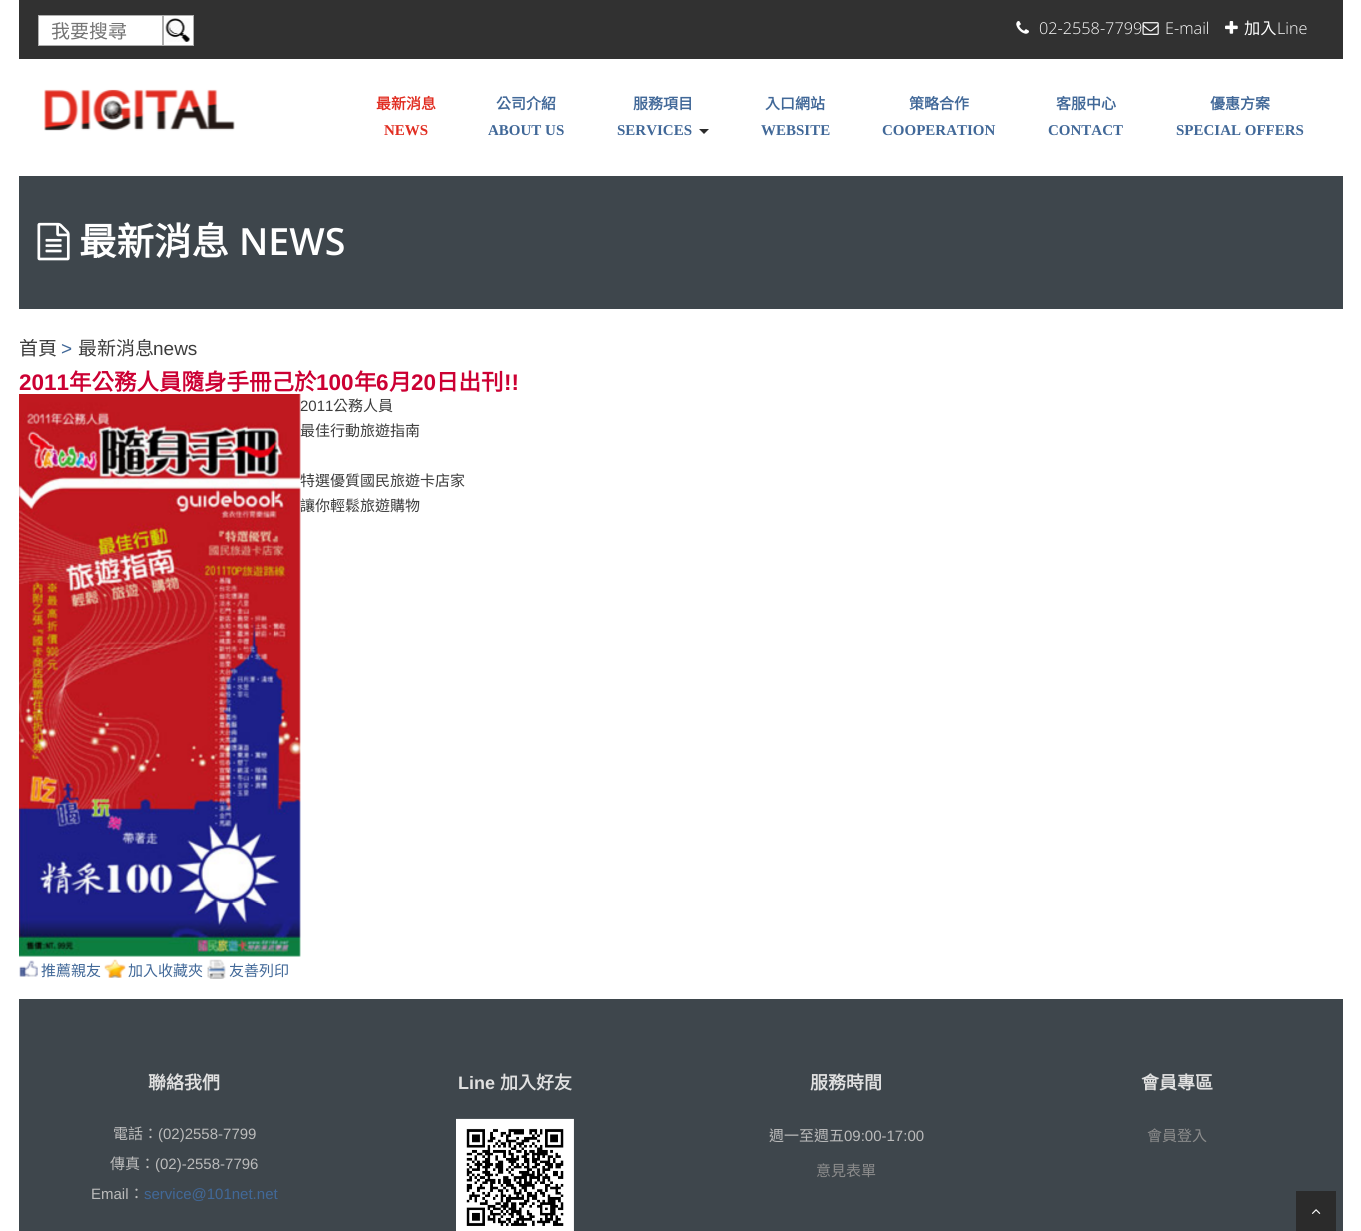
#include <cairo.h>
#include <math.h>
#include <stddef.h>

typedef struct { double x, y; const char *s; } line_t;

static void ink(cairo_t *ctx, unsigned color) {
    cairo_set_source_rgb(ctx, (color >> 16) / 255.0, (color >> 8 & 255) / 255.0, (color & 255) / 255.0);
}

static void paste(cairo_t *ctx, const char *path, double x, double y, double w, double h) {
    cairo_surface_t *image = cairo_image_surface_create_from_png(path);
    cairo_save(ctx);
    cairo_set_source_surface(ctx, image, x, y);
    cairo_rectangle(ctx, x, y, w, h);
    cairo_fill(ctx);
    cairo_restore(ctx);
    cairo_surface_destroy(image);
}

int main(void) {
    cairo_surface_t *surface = cairo_image_surface_create(CAIRO_FORMAT_RGB24, 1361, 1231);
    cairo_t *ctx = cairo_create(surface);
    cairo_font_options_t *options = cairo_font_options_create();
    cairo_font_options_set_hint_metrics(options, CAIRO_HINT_METRICS_OFF);
    cairo_font_options_set_hint_style(options, CAIRO_HINT_STYLE_NONE);
    cairo_set_font_options(ctx, options);
    cairo_set_miter_limit(ctx, 4);
    ink(ctx, 0xFFFFFF);
    cairo_paint(ctx);
    ink(ctx, 0x313131);
    cairo_rectangle(ctx, 19, 0, 1324, 59);
    cairo_fill(ctx);
    ink(ctx, 0xFFFFFF);
    cairo_rectangle(ctx, 38.5, 15.5, 124, 30);
    cairo_fill_preserve(ctx);
    ink(ctx, 0xAEAEAE);
    cairo_set_line_width(ctx, 1);
    cairo_stroke(ctx);
    cairo_select_font_face(ctx, "Noto Sans CJK TC", CAIRO_FONT_SLANT_NORMAL, CAIRO_FONT_WEIGHT_NORMAL);
    cairo_set_font_size(ctx, 19);
    ink(ctx, 0x757575);
    cairo_move_to(ctx, 51, 38);
    cairo_show_text(ctx, "我要搜尋");
    ink(ctx, 0xFFFFFF);
    cairo_rectangle(ctx, 163.5, 15.5, 30, 30);
    cairo_fill_preserve(ctx);
    ink(ctx, 0xAEAEAE);
    cairo_stroke(ctx);
    paste(ctx, "media/1.png", 165, 18, 25, 24);
    paste(ctx, "media/2.png", 1016, 21, 13, 13);
    cairo_select_font_face(ctx, "Open Sans Light", CAIRO_FONT_SLANT_NORMAL, CAIRO_FONT_WEIGHT_NORMAL);
    cairo_set_font_size(ctx, 16.25);
    ink(ctx, 0xFFFFFF);
    cairo_move_to(ctx, 1039, 34);
    cairo_show_text(ctx, "02-2558-7799");
    paste(ctx, "media/3.png", 1142, 22, 17, 13);
    cairo_move_to(ctx, 1165, 34);
    cairo_show_text(ctx, "E-mail");
    paste(ctx, "media/4.png", 1225, 21, 13, 13);
    cairo_select_font_face(ctx, "Noto Sans CJK TC", CAIRO_FONT_SLANT_NORMAL, CAIRO_FONT_WEIGHT_NORMAL);
    cairo_move_to(ctx, 1244, 34);
    cairo_show_text(ctx, "加入");
    cairo_select_font_face(ctx, "Open Sans Light", CAIRO_FONT_SLANT_NORMAL, CAIRO_FONT_WEIGHT_NORMAL);
    cairo_move_to(ctx, 1277, 34);
    cairo_show_text(ctx, "Line");
    paste(ctx, "media/5.png", 44, 89, 191, 42);
    cairo_select_font_face(ctx, "Noto Sans CJK TC", CAIRO_FONT_SLANT_NORMAL, CAIRO_FONT_WEIGHT_BOLD);
    cairo_set_font_size(ctx, 15);
    ink(ctx, 0xE12D21);
    cairo_move_to(ctx, 376, 109);
    cairo_show_text(ctx, "最新消息");
    cairo_select_font_face(ctx, "Liberation Serif", CAIRO_FONT_SLANT_NORMAL, CAIRO_FONT_WEIGHT_BOLD);
    cairo_move_to(ctx, 384, 135);
    cairo_show_text(ctx, "NEWS");
    cairo_select_font_face(ctx, "Noto Sans CJK TC", CAIRO_FONT_SLANT_NORMAL, CAIRO_FONT_WEIGHT_BOLD);
    ink(ctx, 0x416898);
    cairo_move_to(ctx, 496, 109);
    cairo_show_text(ctx, "公司介紹");
    cairo_select_font_face(ctx, "Liberation Serif", CAIRO_FONT_SLANT_NORMAL, CAIRO_FONT_WEIGHT_BOLD);
    cairo_move_to(ctx, 488, 135);
    cairo_show_text(ctx, "ABOUT US");
    cairo_select_font_face(ctx, "Noto Sans CJK TC", CAIRO_FONT_SLANT_NORMAL, CAIRO_FONT_WEIGHT_BOLD);
    cairo_move_to(ctx, 633, 109);
    cairo_show_text(ctx, "服務項目");
    cairo_select_font_face(ctx, "Liberation Serif", CAIRO_FONT_SLANT_NORMAL, CAIRO_FONT_WEIGHT_BOLD);
    cairo_move_to(ctx, 617, 135);
    cairo_show_text(ctx, "SERVICES");
    ink(ctx, 0x2B2B2B);
    cairo_new_path(ctx);
    cairo_move_to(ctx, 699, 129);
    cairo_line_to(ctx, 709, 129);
    cairo_line_to(ctx, 704, 134);
    cairo_close_path(ctx);
    cairo_fill(ctx);
    cairo_select_font_face(ctx, "Noto Sans CJK TC", CAIRO_FONT_SLANT_NORMAL, CAIRO_FONT_WEIGHT_BOLD);
    ink(ctx, 0x416898);
    cairo_move_to(ctx, 765, 109);
    cairo_show_text(ctx, "入口網站");
    cairo_select_font_face(ctx, "Liberation Serif", CAIRO_FONT_SLANT_NORMAL, CAIRO_FONT_WEIGHT_BOLD);
    cairo_move_to(ctx, 761, 135);
    cairo_show_text(ctx, "WEBSITE");
    cairo_select_font_face(ctx, "Noto Sans CJK TC", CAIRO_FONT_SLANT_NORMAL, CAIRO_FONT_WEIGHT_BOLD);
    cairo_move_to(ctx, 909, 109);
    cairo_show_text(ctx, "策略合作");
    cairo_select_font_face(ctx, "Liberation Serif", CAIRO_FONT_SLANT_NORMAL, CAIRO_FONT_WEIGHT_BOLD);
    cairo_move_to(ctx, 882, 135);
    cairo_show_text(ctx, "COOPERATION");
    cairo_select_font_face(ctx, "Noto Sans CJK TC", CAIRO_FONT_SLANT_NORMAL, CAIRO_FONT_WEIGHT_BOLD);
    cairo_move_to(ctx, 1056, 109);
    cairo_show_text(ctx, "客服中心");
    cairo_select_font_face(ctx, "Liberation Serif", CAIRO_FONT_SLANT_NORMAL, CAIRO_FONT_WEIGHT_BOLD);
    cairo_move_to(ctx, 1048, 135);
    cairo_show_text(ctx, "CONTACT");
    cairo_select_font_face(ctx, "Noto Sans CJK TC", CAIRO_FONT_SLANT_NORMAL, CAIRO_FONT_WEIGHT_BOLD);
    cairo_move_to(ctx, 1210, 109);
    cairo_show_text(ctx, "優惠方案");
    cairo_select_font_face(ctx, "Liberation Serif", CAIRO_FONT_SLANT_NORMAL, CAIRO_FONT_WEIGHT_BOLD);
    cairo_move_to(ctx, 1176, 135);
    cairo_show_text(ctx, "SPECIAL OFFERS");
    ink(ctx, 0x3E464C);
    cairo_rectangle(ctx, 19, 176, 1324, 133);
    cairo_fill(ctx);
    paste(ctx, "media/6.png", 37, 222, 33, 39);
    cairo_select_font_face(ctx, "Noto Sans CJK TC", CAIRO_FONT_SLANT_NORMAL, CAIRO_FONT_WEIGHT_BOLD);
    cairo_set_font_size(ctx, 37.5);
    ink(ctx, 0xFFFFFF);
    cairo_move_to(ctx, 79, 255);
    cairo_show_text(ctx, "最新消息");
    cairo_select_font_face(ctx, "Open Sans SemiBold", CAIRO_FONT_SLANT_NORMAL, CAIRO_FONT_WEIGHT_NORMAL);
    cairo_move_to(ctx, 239, 255);
    cairo_show_text(ctx, "NEWS");
    cairo_select_font_face(ctx, "Noto Sans CJK TC", CAIRO_FONT_SLANT_NORMAL, CAIRO_FONT_WEIGHT_NORMAL);
    cairo_set_font_size(ctx, 19);
    ink(ctx, 0x3C3C3C);
    cairo_move_to(ctx, 19, 355);
    cairo_show_text(ctx, "首頁");
    cairo_select_font_face(ctx, "Liberation Sans", CAIRO_FONT_SLANT_NORMAL, CAIRO_FONT_WEIGHT_NORMAL);
    ink(ctx, 0x416898);
    cairo_move_to(ctx, 61, 355);
    cairo_show_text(ctx, ">");
    cairo_select_font_face(ctx, "Noto Sans CJK TC", CAIRO_FONT_SLANT_NORMAL, CAIRO_FONT_WEIGHT_NORMAL);
    ink(ctx, 0x3C3C3C);
    cairo_move_to(ctx, 78, 355);
    cairo_show_text(ctx, "最新消息");
    cairo_select_font_face(ctx, "Liberation Sans", CAIRO_FONT_SLANT_NORMAL, CAIRO_FONT_WEIGHT_NORMAL);
    cairo_move_to(ctx, 153, 355);
    cairo_show_text(ctx, "news");
    cairo_select_font_face(ctx, "Liberation Sans", CAIRO_FONT_SLANT_NORMAL, CAIRO_FONT_WEIGHT_BOLD);
    cairo_set_font_size(ctx, 22.5);
    ink(ctx, 0xCC0033);
    cairo_move_to(ctx, 19, 390);
    cairo_show_text(ctx, "2011");
    cairo_select_font_face(ctx, "Noto Sans CJK TC", CAIRO_FONT_SLANT_NORMAL, CAIRO_FONT_WEIGHT_BOLD);
    cairo_move_to(ctx, 69, 390);
    cairo_show_text(ctx, "年公務人員隨身手冊己於");
    cairo_select_font_face(ctx, "Liberation Sans", CAIRO_FONT_SLANT_NORMAL, CAIRO_FONT_WEIGHT_BOLD);
    cairo_move_to(ctx, 316, 390);
    cairo_show_text(ctx, "100");
    cairo_select_font_face(ctx, "Noto Sans CJK TC", CAIRO_FONT_SLANT_NORMAL, CAIRO_FONT_WEIGHT_BOLD);
    cairo_move_to(ctx, 354, 390);
    cairo_show_text(ctx, "年");
    cairo_select_font_face(ctx, "Liberation Sans", CAIRO_FONT_SLANT_NORMAL, CAIRO_FONT_WEIGHT_BOLD);
    cairo_move_to(ctx, 376, 390);
    cairo_show_text(ctx, "6");
    cairo_select_font_face(ctx, "Noto Sans CJK TC", CAIRO_FONT_SLANT_NORMAL, CAIRO_FONT_WEIGHT_BOLD);
    cairo_move_to(ctx, 389, 390);
    cairo_show_text(ctx, "月");
    cairo_select_font_face(ctx, "Liberation Sans", CAIRO_FONT_SLANT_NORMAL, CAIRO_FONT_WEIGHT_BOLD);
    cairo_move_to(ctx, 411, 390);
    cairo_show_text(ctx, "20");
    cairo_select_font_face(ctx, "Noto Sans CJK TC", CAIRO_FONT_SLANT_NORMAL, CAIRO_FONT_WEIGHT_BOLD);
    cairo_move_to(ctx, 436, 390);
    cairo_show_text(ctx, "日出刊");
    cairo_select_font_face(ctx, "Liberation Sans", CAIRO_FONT_SLANT_NORMAL, CAIRO_FONT_WEIGHT_BOLD);
    cairo_move_to(ctx, 504, 390);
    cairo_show_text(ctx, "!!");
    paste(ctx, "media/7.png", 19, 394, 282, 563);
    cairo_select_font_face(ctx, "Liberation Sans", CAIRO_FONT_SLANT_NORMAL, CAIRO_FONT_WEIGHT_NORMAL);
    cairo_set_font_size(ctx, 15);
    ink(ctx, 0x3C3C3C);
    cairo_move_to(ctx, 300, 411);
    cairo_show_text(ctx, "2011");
    cairo_select_font_face(ctx, "Noto Sans CJK TC", CAIRO_FONT_SLANT_NORMAL, CAIRO_FONT_WEIGHT_NORMAL);
    {
        static const line_t items[] = {
            {333, 411, "公務人員"},
            {300, 436, "最佳行動旅遊指南"},
            {300, 486, "特選優質國民旅遊卡店家"},
            {300, 511, "讓你輕鬆旅遊購物"},
        };
        for (size_t i = 0; i < sizeof items / sizeof *items; i++) {
            cairo_move_to(ctx, items[i].x, items[i].y);
            cairo_show_text(ctx, items[i].s);
        }
    }
    paste(ctx, "media/8.png", 19, 960, 19, 17);
    ink(ctx, 0x416898);
    cairo_move_to(ctx, 41, 976);
    cairo_show_text(ctx, "推薦親友");
    paste(ctx, "media/9.png", 104, 959, 22, 19);
    cairo_move_to(ctx, 128, 976);
    cairo_show_text(ctx, "加入收藏夾");
    paste(ctx, "media/10.png", 207, 959, 19, 20);
    cairo_move_to(ctx, 229, 976);
    cairo_show_text(ctx, "友善列印");
    ink(ctx, 0x3E464C);
    cairo_rectangle(ctx, 19, 999, 1324, 232);
    cairo_fill(ctx);
    cairo_select_font_face(ctx, "Noto Sans CJK TC", CAIRO_FONT_SLANT_NORMAL, CAIRO_FONT_WEIGHT_BOLD);
    cairo_set_font_size(ctx, 18);
    ink(ctx, 0xE0E0E0);
    cairo_move_to(ctx, 148, 1089);
    cairo_show_text(ctx, "聯絡我們");
    cairo_select_font_face(ctx, "Noto Sans CJK TC", CAIRO_FONT_SLANT_NORMAL, CAIRO_FONT_WEIGHT_NORMAL);
    cairo_set_font_size(ctx, 15);
    ink(ctx, 0xBBBBBB);
    cairo_move_to(ctx, 113, 1139);
    cairo_show_text(ctx, "電話：");
    cairo_select_font_face(ctx, "Liberation Sans", CAIRO_FONT_SLANT_NORMAL, CAIRO_FONT_WEIGHT_NORMAL);
    cairo_move_to(ctx, 158, 1139);
    cairo_show_text(ctx, "(02)2558-7799");
    cairo_select_font_face(ctx, "Noto Sans CJK TC", CAIRO_FONT_SLANT_NORMAL, CAIRO_FONT_WEIGHT_NORMAL);
    cairo_move_to(ctx, 110, 1169);
    cairo_show_text(ctx, "傳真：");
    cairo_select_font_face(ctx, "Liberation Sans", CAIRO_FONT_SLANT_NORMAL, CAIRO_FONT_WEIGHT_NORMAL);
    cairo_move_to(ctx, 155, 1169);
    cairo_show_text(ctx, "(02)-2558-7796");
    cairo_move_to(ctx, 91, 1199);
    cairo_show_text(ctx, "Email");
    cairo_select_font_face(ctx, "Noto Sans CJK TC", CAIRO_FONT_SLANT_NORMAL, CAIRO_FONT_WEIGHT_NORMAL);
    cairo_move_to(ctx, 129, 1199);
    cairo_show_text(ctx, "：");
    cairo_select_font_face(ctx, "Liberation Sans", CAIRO_FONT_SLANT_NORMAL, CAIRO_FONT_WEIGHT_NORMAL);
    ink(ctx, 0x416898);
    cairo_move_to(ctx, 144, 1199);
    cairo_show_text(ctx, "service@101net.net");
    cairo_select_font_face(ctx, "Liberation Sans", CAIRO_FONT_SLANT_NORMAL, CAIRO_FONT_WEIGHT_BOLD);
    cairo_set_font_size(ctx, 18);
    ink(ctx, 0xE0E0E0);
    cairo_move_to(ctx, 458, 1089);
    cairo_show_text(ctx, "Line");
    cairo_select_font_face(ctx, "Noto Sans CJK TC", CAIRO_FONT_SLANT_NORMAL, CAIRO_FONT_WEIGHT_BOLD);
    cairo_move_to(ctx, 500, 1089);
    cairo_show_text(ctx, "加入好友");
    paste(ctx, "media/11.png", 456, 1118, 118, 113);
    cairo_move_to(ctx, 810, 1089);
    cairo_show_text(ctx, "服務時間");
    cairo_select_font_face(ctx, "Noto Sans CJK TC", CAIRO_FONT_SLANT_NORMAL, CAIRO_FONT_WEIGHT_NORMAL);
    cairo_set_font_size(ctx, 15);
    ink(ctx, 0xBBBBBB);
    cairo_move_to(ctx, 769, 1141);
    cairo_show_text(ctx, "週一至週五");
    cairo_select_font_face(ctx, "Liberation Sans", CAIRO_FONT_SLANT_NORMAL, CAIRO_FONT_WEIGHT_NORMAL);
    cairo_move_to(ctx, 844, 1141);
    cairo_show_text(ctx, "09:00-17:00");
    cairo_select_font_face(ctx, "Noto Sans CJK TC", CAIRO_FONT_SLANT_NORMAL, CAIRO_FONT_WEIGHT_NORMAL);
    ink(ctx, 0x8C8C8C);
    cairo_move_to(ctx, 816, 1176);
    cairo_show_text(ctx, "意見表單");
    cairo_select_font_face(ctx, "Noto Sans CJK TC", CAIRO_FONT_SLANT_NORMAL, CAIRO_FONT_WEIGHT_BOLD);
    cairo_set_font_size(ctx, 18);
    ink(ctx, 0xE0E0E0);
    cairo_move_to(ctx, 1141, 1089);
    cairo_show_text(ctx, "會員專區");
    cairo_select_font_face(ctx, "Noto Sans CJK TC", CAIRO_FONT_SLANT_NORMAL, CAIRO_FONT_WEIGHT_NORMAL);
    cairo_set_font_size(ctx, 15);
    ink(ctx, 0x8C8C8C);
    cairo_move_to(ctx, 1147, 1141);
    cairo_show_text(ctx, "會員登入");
    ink(ctx, 0x2B2B2B);
    cairo_rectangle(ctx, 1296, 1191, 40, 40);
    cairo_fill(ctx);
    paste(ctx, "media/12.png", 1311, 1209, 10, 5);
    cairo_surface_write_to_png(surface, "image.png");
    cairo_font_options_destroy(options);
    cairo_destroy(ctx);
    cairo_surface_destroy(surface);
    return 0;
}
